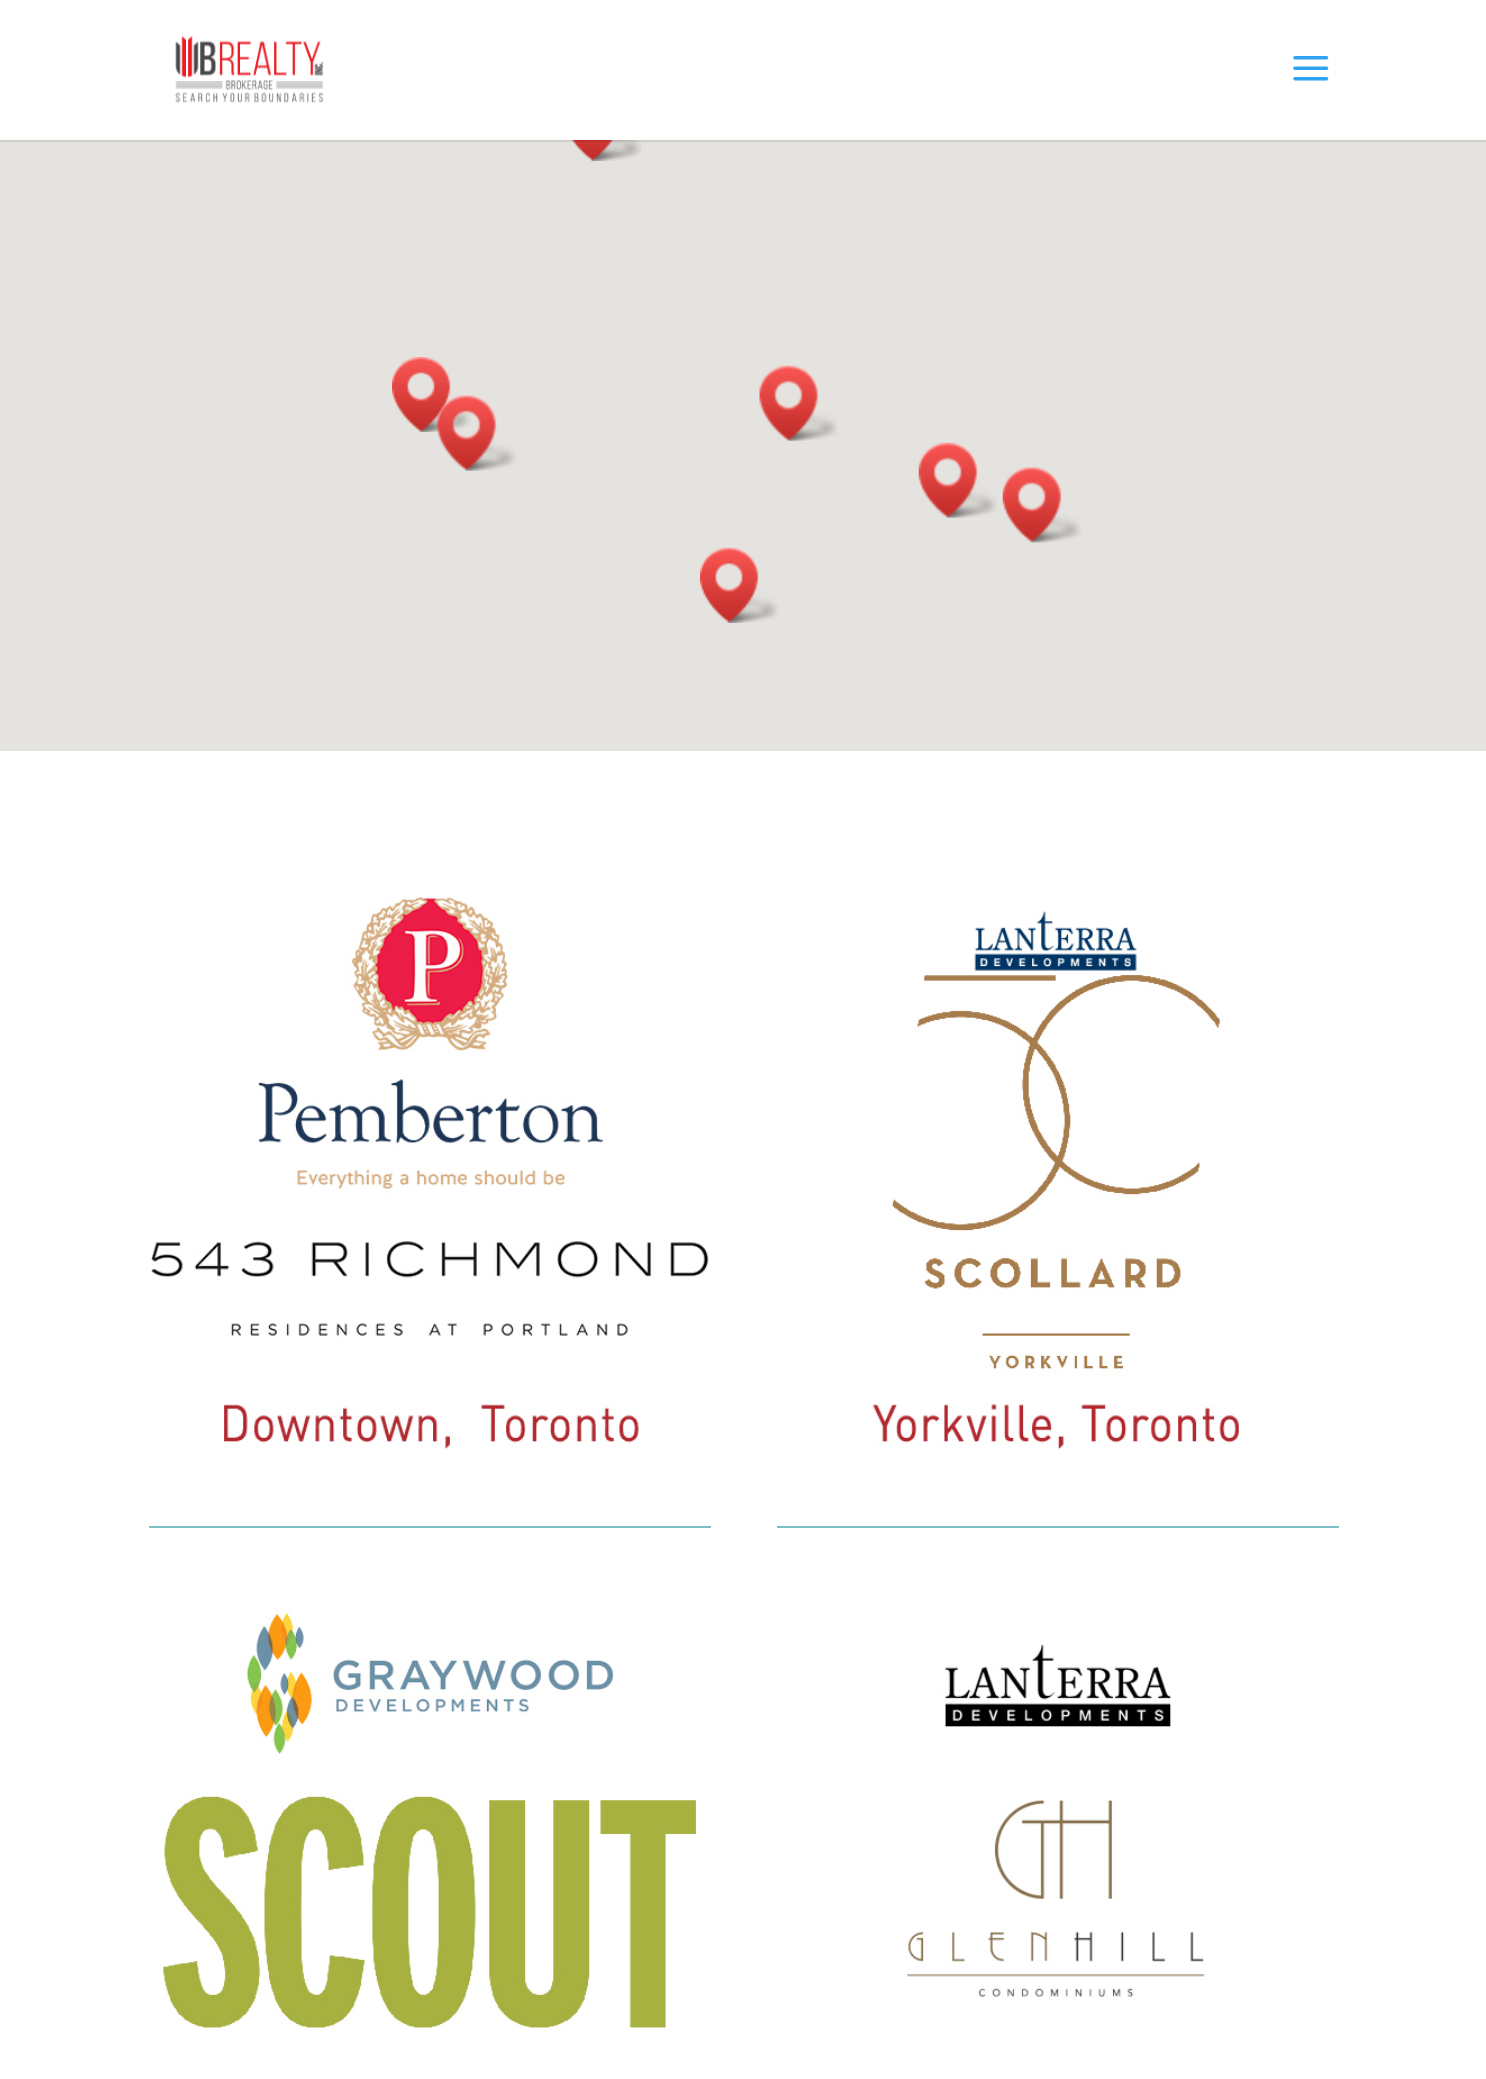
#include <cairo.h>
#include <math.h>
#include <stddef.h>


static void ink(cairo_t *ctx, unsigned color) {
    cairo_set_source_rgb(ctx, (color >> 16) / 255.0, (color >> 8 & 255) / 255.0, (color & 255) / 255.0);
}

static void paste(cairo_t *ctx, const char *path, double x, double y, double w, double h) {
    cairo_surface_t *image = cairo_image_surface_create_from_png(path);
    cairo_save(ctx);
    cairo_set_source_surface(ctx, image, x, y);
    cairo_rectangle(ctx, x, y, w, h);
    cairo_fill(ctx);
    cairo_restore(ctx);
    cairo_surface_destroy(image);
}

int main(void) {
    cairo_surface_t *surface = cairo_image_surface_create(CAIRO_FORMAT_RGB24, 1486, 2079);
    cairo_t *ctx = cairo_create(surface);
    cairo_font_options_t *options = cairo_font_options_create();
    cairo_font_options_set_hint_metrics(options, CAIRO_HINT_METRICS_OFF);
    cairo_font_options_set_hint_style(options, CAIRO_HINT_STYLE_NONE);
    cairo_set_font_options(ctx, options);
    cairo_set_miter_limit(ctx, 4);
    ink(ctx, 0xFFFFFF);
    cairo_paint(ctx);
    ink(ctx, 0xE5E3DF);
    cairo_rectangle(ctx, 0, 140, 1486, 611);
    cairo_fill(ctx);
    paste(ctx, "media/3.png", 571, 140, 71, 21);
    cairo_set_source_rgba(ctx, 0, 0, 0, 0.1);
    cairo_new_path(ctx);
    cairo_move_to(ctx, 0, 140);
    cairo_line_to(ctx, 0, 142);
    cairo_line_to(ctx, 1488, 142);
    cairo_line_to(ctx, 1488, 2);
    cairo_line_to(ctx, 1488, 140);
    cairo_close_path(ctx);
    cairo_fill(ctx);
    paste(ctx, "media/1.png", 175, 35, 149, 68);
    paste(ctx, "media/2.png", 1293, 56, 36, 25);
    paste(ctx, "media/4.png", 392, 357, 79, 75);
    paste(ctx, "media/5.png", 437, 395, 79, 76);
    paste(ctx, "media/6.png", 759, 365, 79, 76);
    paste(ctx, "media/7.png", 918, 442, 79, 76);
    paste(ctx, "media/8.png", 1002, 466, 79, 77);
    paste(ctx, "media/9.png", 700, 547, 79, 76);
    paste(ctx, "media/10.png", 151, 893, 558, 557);
    ink(ctx, 0x7EBEC5);
    cairo_rectangle(ctx, 149, 1526, 562, 2);
    cairo_fill(ctx);
    paste(ctx, "media/11.png", 163, 1609, 533, 419);
    paste(ctx, "media/12.png", 872, 911, 367, 539);
    cairo_rectangle(ctx, 777, 1526, 562, 2);
    cairo_fill(ctx);
    paste(ctx, "media/13.png", 907, 1645, 298, 352);
    cairo_surface_write_to_png(surface, "image.png");
    cairo_font_options_destroy(options);
    cairo_destroy(ctx);
    cairo_surface_destroy(surface);
    return 0;
}
